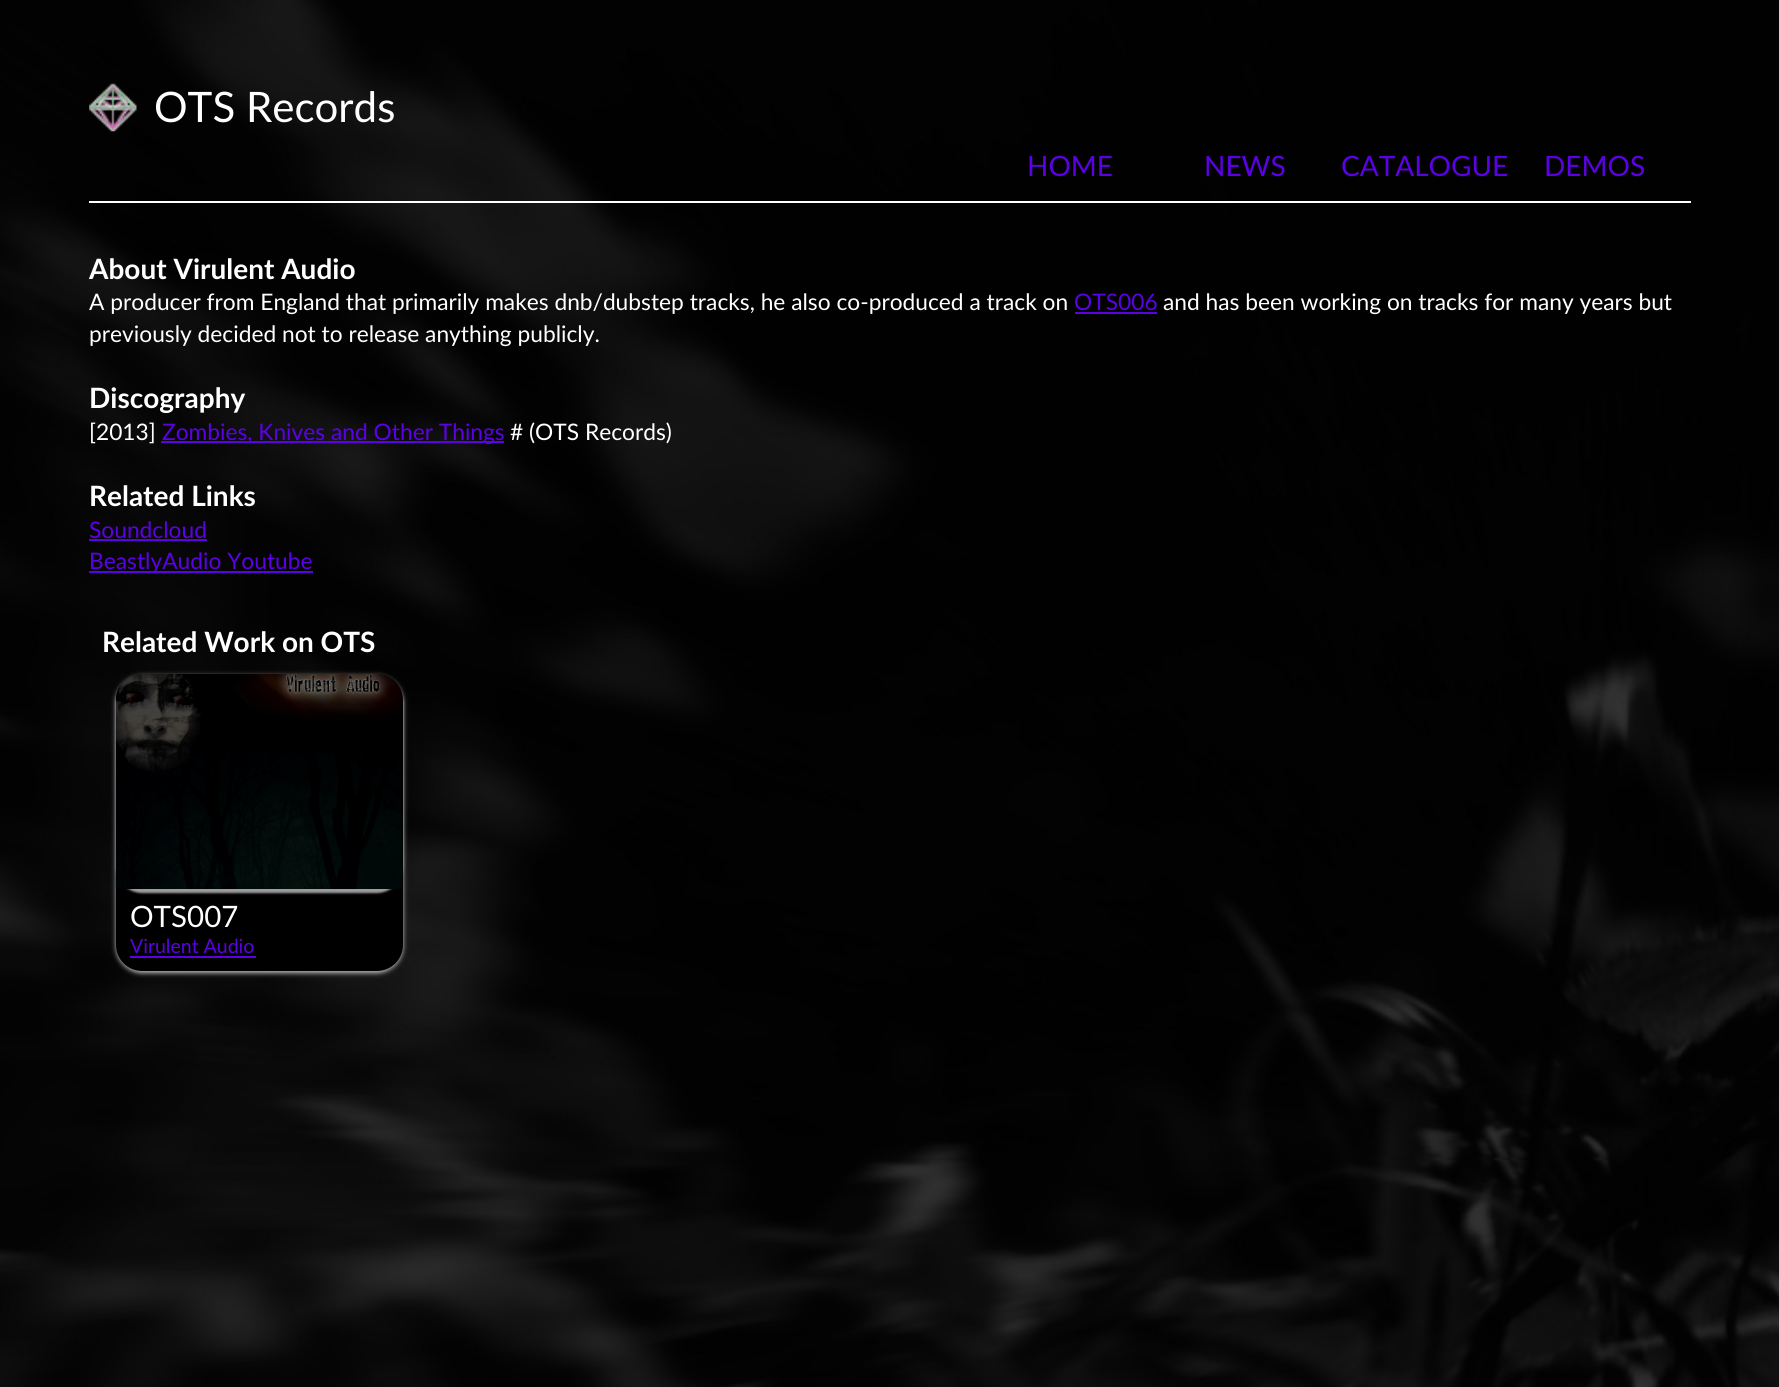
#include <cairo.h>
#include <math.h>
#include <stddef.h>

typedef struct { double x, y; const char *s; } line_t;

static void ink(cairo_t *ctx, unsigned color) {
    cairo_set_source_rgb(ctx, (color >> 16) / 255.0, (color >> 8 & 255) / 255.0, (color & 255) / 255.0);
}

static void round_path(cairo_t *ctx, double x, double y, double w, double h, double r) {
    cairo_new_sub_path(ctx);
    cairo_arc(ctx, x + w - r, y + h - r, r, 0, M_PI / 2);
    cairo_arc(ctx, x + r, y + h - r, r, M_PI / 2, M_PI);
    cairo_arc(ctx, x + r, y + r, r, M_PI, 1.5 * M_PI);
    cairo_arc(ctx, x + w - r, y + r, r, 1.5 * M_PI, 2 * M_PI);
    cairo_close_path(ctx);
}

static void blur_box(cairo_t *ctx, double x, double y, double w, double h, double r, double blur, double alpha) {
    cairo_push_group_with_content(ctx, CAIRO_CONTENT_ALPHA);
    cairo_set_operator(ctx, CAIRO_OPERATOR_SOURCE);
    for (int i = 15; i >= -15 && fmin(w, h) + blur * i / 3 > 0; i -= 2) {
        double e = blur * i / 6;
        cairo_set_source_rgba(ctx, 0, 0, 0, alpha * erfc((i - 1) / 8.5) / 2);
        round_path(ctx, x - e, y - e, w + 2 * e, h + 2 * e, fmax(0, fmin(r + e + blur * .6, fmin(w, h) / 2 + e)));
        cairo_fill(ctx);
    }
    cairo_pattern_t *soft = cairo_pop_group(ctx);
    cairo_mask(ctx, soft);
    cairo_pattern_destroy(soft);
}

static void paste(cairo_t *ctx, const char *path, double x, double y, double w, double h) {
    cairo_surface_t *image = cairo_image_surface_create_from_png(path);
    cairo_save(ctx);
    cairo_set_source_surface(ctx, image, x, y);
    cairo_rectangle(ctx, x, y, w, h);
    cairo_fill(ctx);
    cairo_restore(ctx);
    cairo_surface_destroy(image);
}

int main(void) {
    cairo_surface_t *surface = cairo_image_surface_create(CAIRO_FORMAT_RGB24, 1779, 1387);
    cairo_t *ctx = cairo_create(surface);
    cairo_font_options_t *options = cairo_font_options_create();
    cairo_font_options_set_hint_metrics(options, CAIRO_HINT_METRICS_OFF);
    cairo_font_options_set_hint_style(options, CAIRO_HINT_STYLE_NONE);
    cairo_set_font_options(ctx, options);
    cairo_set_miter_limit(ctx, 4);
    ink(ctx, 0xFFFFFF);
    cairo_paint(ctx);
    paste(ctx, "media/1.png", 0, 0, 1779, 1387);
    paste(ctx, "media/2.png", 89, 83, 48, 49);
    cairo_select_font_face(ctx, "Lato", CAIRO_FONT_SLANT_NORMAL, CAIRO_FONT_WEIGHT_NORMAL);
    cairo_set_font_size(ctx, 42);
    ink(ctx, 0xFFFFFF);
    cairo_move_to(ctx, 154, 122);
    cairo_show_text(ctx, "OTS Records");
    cairo_set_font_size(ctx, 28);
    ink(ctx, 0x5C00E6);
    {
        static const line_t items[] = {
            {1027, 176, "HOME"},
            {1204, 176, "NEWS"},
            {1341, 176, "CATALOGUE"},
            {1544, 176, "DEMOS"},
        };
        for (size_t i = 0; i < sizeof items / sizeof *items; i++) {
            cairo_move_to(ctx, items[i].x, items[i].y);
            cairo_show_text(ctx, items[i].s);
        }
    }
    ink(ctx, 0xFFFFFF);
    cairo_rectangle(ctx, 89, 201, 1602, 2);
    cairo_fill(ctx);
    cairo_select_font_face(ctx, "Lato", CAIRO_FONT_SLANT_NORMAL, CAIRO_FONT_WEIGHT_BOLD);
    cairo_move_to(ctx, 89, 279);
    cairo_show_text(ctx, "About Virulent Audio");
    cairo_select_font_face(ctx, "Lato", CAIRO_FONT_SLANT_NORMAL, CAIRO_FONT_WEIGHT_NORMAL);
    cairo_set_font_size(ctx, 22.75);
    cairo_move_to(ctx, 89, 310);
    cairo_show_text(ctx, "A producer from England that primarily makes dnb/dubstep tracks, he also co-produced a track on");
    ink(ctx, 0x5C00E6);
    cairo_move_to(ctx, 1074, 310);
    cairo_show_text(ctx, "OTS006");
    cairo_rectangle(ctx, 1075, 312, 82, 2);
    cairo_fill(ctx);
    ink(ctx, 0xFFFFFF);
    cairo_move_to(ctx, 1163, 310);
    cairo_show_text(ctx, "and has been working on tracks for many years but");
    cairo_move_to(ctx, 89, 342);
    cairo_show_text(ctx, "previously decided not to release anything publicly.");
    cairo_select_font_face(ctx, "Lato", CAIRO_FONT_SLANT_NORMAL, CAIRO_FONT_WEIGHT_BOLD);
    cairo_set_font_size(ctx, 28);
    cairo_move_to(ctx, 89, 408);
    cairo_show_text(ctx, "Discography");
    cairo_select_font_face(ctx, "Lato", CAIRO_FONT_SLANT_NORMAL, CAIRO_FONT_WEIGHT_NORMAL);
    cairo_set_font_size(ctx, 22.75);
    cairo_move_to(ctx, 89, 440);
    cairo_show_text(ctx, "[2013]");
    ink(ctx, 0x5C00E6);
    cairo_rectangle(ctx, 161, 441, 343, 2);
    cairo_fill(ctx);
    cairo_move_to(ctx, 162, 440);
    cairo_show_text(ctx, "Zombies, Knives and Other Things");
    ink(ctx, 0xFFFFFF);
    cairo_move_to(ctx, 510, 440);
    cairo_show_text(ctx, "# (OTS Records)");
    cairo_select_font_face(ctx, "Lato", CAIRO_FONT_SLANT_NORMAL, CAIRO_FONT_WEIGHT_BOLD);
    cairo_set_font_size(ctx, 28);
    cairo_move_to(ctx, 89, 506);
    cairo_show_text(ctx, "Related Links");
    cairo_select_font_face(ctx, "Lato", CAIRO_FONT_SLANT_NORMAL, CAIRO_FONT_WEIGHT_NORMAL);
    cairo_set_font_size(ctx, 22.75);
    ink(ctx, 0x5C00E6);
    cairo_move_to(ctx, 89, 538);
    cairo_show_text(ctx, "Soundcloud");
    cairo_rectangle(ctx, 89, 539, 118, 2);
    cairo_fill(ctx);
    cairo_rectangle(ctx, 89, 571, 224, 2);
    cairo_fill(ctx);
    cairo_move_to(ctx, 89, 569);
    cairo_show_text(ctx, "BeastlyAudio Youtube");
    cairo_select_font_face(ctx, "Lato", CAIRO_FONT_SLANT_NORMAL, CAIRO_FONT_WEIGHT_BOLD);
    cairo_set_font_size(ctx, 28);
    ink(ctx, 0xFFFFFF);
    cairo_move_to(ctx, 102, 652);
    cairo_show_text(ctx, "Related Work on OTS");
    ink(ctx, 0xC3C3C3);
    blur_box(ctx, 116, 676, 287, 297, 26, 2.5, 1);
    ink(ctx, 0x000000);
    round_path(ctx, 116, 674, 287, 297, 26);
    cairo_fill(ctx);
    cairo_save(ctx);
    cairo_set_fill_rule(ctx, CAIRO_FILL_RULE_EVEN_ODD);
    cairo_new_path(ctx);
    cairo_move_to(ctx, 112, 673);
    cairo_line_to(ctx, 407, 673);
    cairo_line_to(ctx, 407, 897);
    cairo_line_to(ctx, 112, 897);
    cairo_close_path(ctx);
    cairo_move_to(ctx, 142, 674);
    cairo_line_to(ctx, 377, 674);
    cairo_curve_to(ctx, 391.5, 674, 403, 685.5, 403, 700);
    cairo_line_to(ctx, 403, 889);
    cairo_line_to(ctx, 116, 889);
    cairo_line_to(ctx, 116, 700);
    cairo_curve_to(ctx, 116, 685.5, 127.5, 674, 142, 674);
    cairo_close_path(ctx);
    cairo_clip(ctx);
    ink(ctx, 0xC3C3C3);
    blur_box(ctx, 116, 677, 287, 216, 26, 1, 0.8);
    cairo_restore(ctx);
    paste(ctx, "media/3.png", 115, 674, 288, 215);
    cairo_select_font_face(ctx, "Lato", CAIRO_FONT_SLANT_NORMAL, CAIRO_FONT_WEIGHT_NORMAL);
    cairo_set_font_size(ctx, 29.5);
    ink(ctx, 0xFFFFFF);
    cairo_move_to(ctx, 130, 927);
    cairo_show_text(ctx, "OTS007");
    cairo_set_font_size(ctx, 19.5);
    ink(ctx, 0x5C00E6);
    cairo_move_to(ctx, 130, 953);
    cairo_show_text(ctx, "Virulent Audio");
    cairo_rectangle(ctx, 130, 956, 126, 2);
    cairo_fill(ctx);
    cairo_surface_write_to_png(surface, "image.png");
    cairo_font_options_destroy(options);
    cairo_destroy(ctx);
    cairo_surface_destroy(surface);
    return 0;
}
